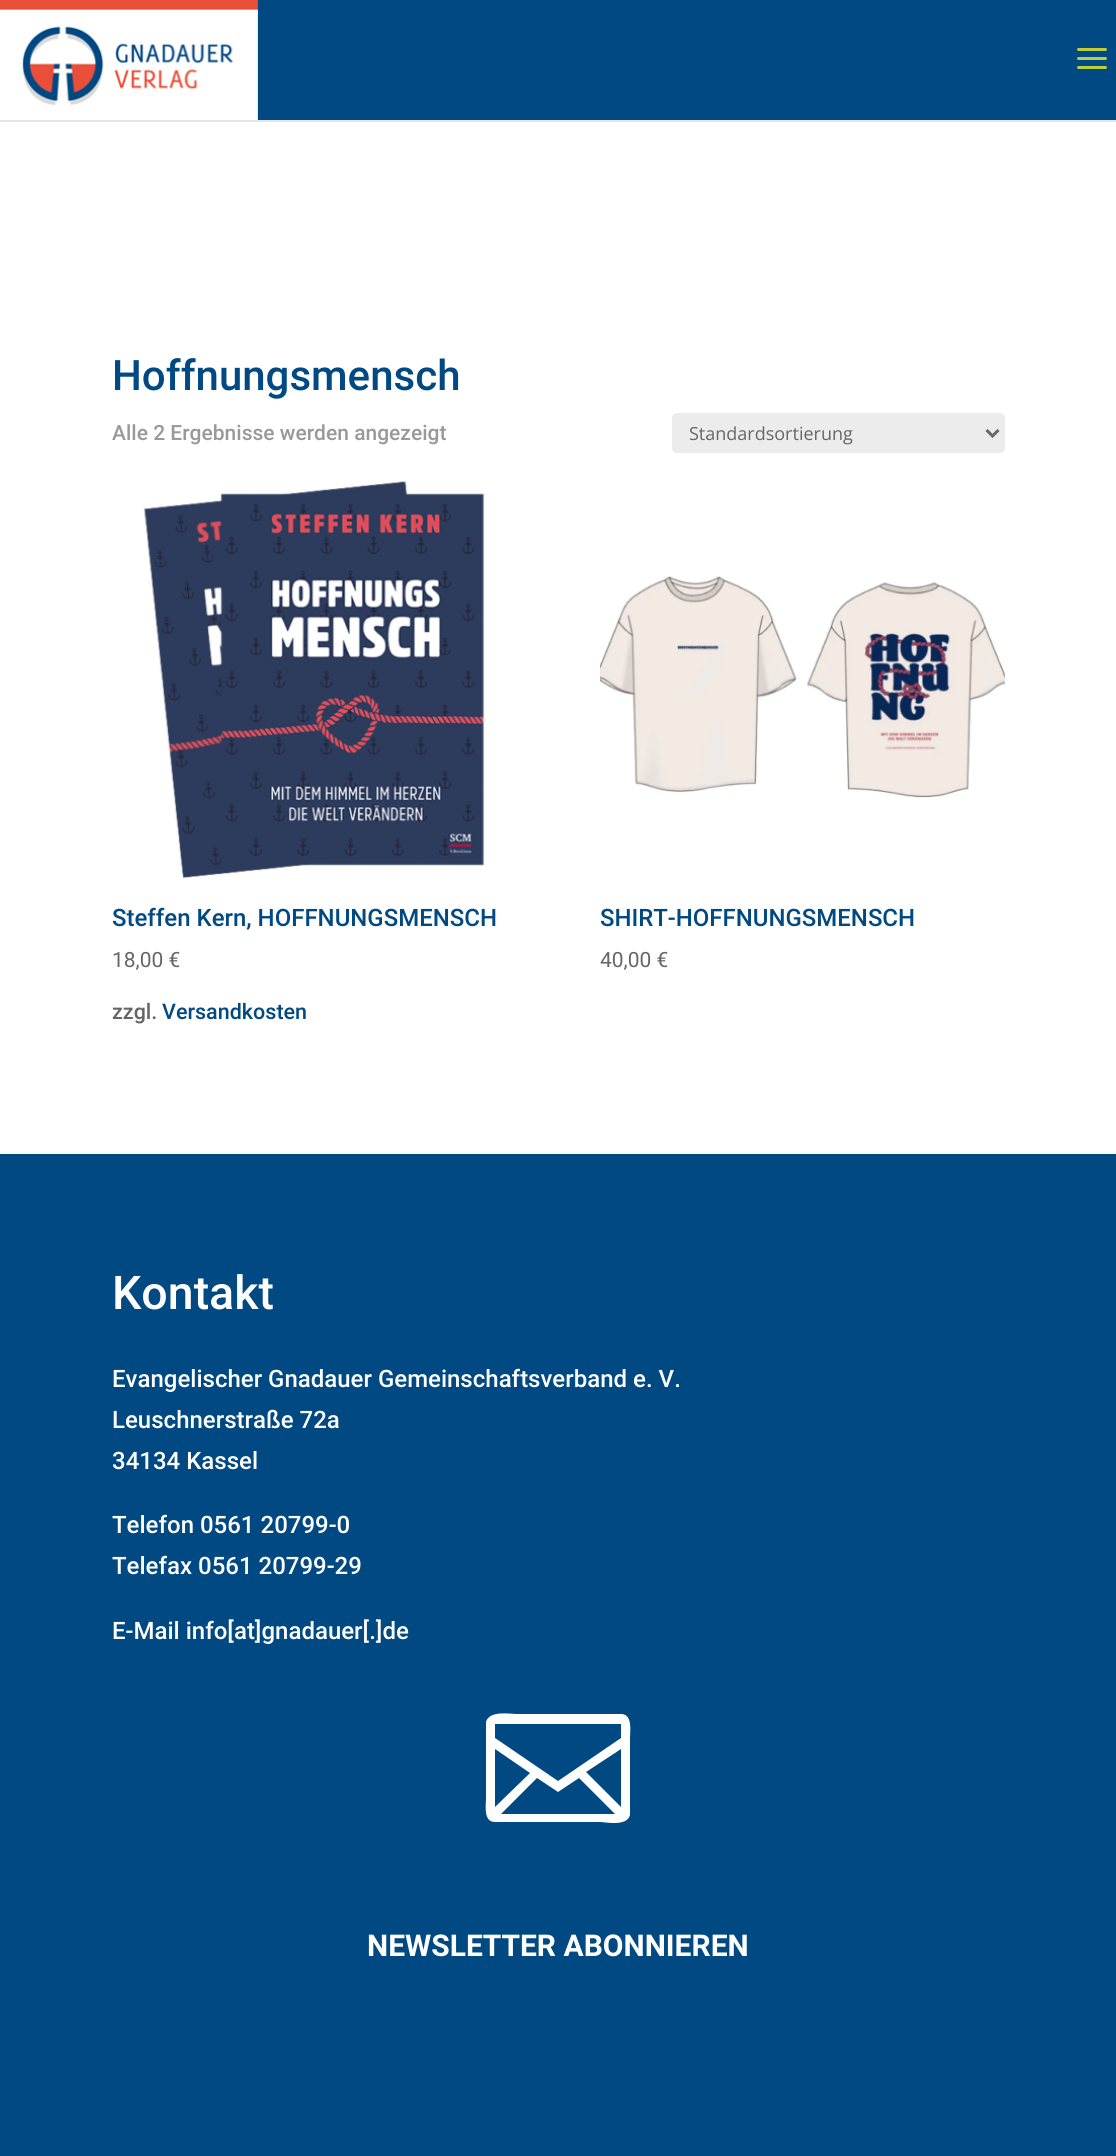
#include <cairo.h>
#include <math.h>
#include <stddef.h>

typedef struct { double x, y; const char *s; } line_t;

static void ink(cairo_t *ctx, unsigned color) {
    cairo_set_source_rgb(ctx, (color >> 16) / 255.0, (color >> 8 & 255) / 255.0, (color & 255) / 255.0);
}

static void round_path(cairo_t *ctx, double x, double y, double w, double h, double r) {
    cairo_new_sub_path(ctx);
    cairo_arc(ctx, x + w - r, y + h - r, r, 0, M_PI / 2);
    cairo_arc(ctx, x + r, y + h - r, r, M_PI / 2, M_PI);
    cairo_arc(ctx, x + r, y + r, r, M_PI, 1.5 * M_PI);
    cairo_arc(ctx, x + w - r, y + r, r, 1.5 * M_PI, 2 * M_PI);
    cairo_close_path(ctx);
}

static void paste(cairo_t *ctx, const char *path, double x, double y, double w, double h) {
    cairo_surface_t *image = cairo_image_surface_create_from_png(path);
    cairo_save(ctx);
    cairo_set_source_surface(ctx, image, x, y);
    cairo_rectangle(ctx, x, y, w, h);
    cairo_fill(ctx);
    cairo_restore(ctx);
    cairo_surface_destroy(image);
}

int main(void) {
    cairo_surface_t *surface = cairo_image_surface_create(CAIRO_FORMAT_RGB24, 1116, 2156);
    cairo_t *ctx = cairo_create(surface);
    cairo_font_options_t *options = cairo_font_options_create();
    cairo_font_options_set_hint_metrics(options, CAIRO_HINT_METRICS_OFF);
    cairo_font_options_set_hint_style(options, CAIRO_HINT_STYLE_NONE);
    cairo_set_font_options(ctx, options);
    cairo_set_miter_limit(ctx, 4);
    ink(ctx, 0xFFFFFF);
    cairo_paint(ctx);
    ink(ctx, 0xE6E6E6);
    cairo_rectangle(ctx, 0, 120, 1116, 2);
    cairo_fill(ctx);
    ink(ctx, 0x004982);
    cairo_rectangle(ctx, 257, 0, 859, 120);
    cairo_fill(ctx);
    paste(ctx, "media/1.png", 0, 0, 258, 120);
    paste(ctx, "media/2.png", 1077, 48, 30, 21);
    cairo_select_font_face(ctx, "Roboto Medium", CAIRO_FONT_SLANT_NORMAL, CAIRO_FONT_WEIGHT_NORMAL);
    cairo_set_font_size(ctx, 42);
    cairo_move_to(ctx, 112, 390);
    cairo_show_text(ctx, "Hoffnungsmensch");
    cairo_set_font_size(ctx, 21);
    ink(ctx, 0x999999);
    cairo_move_to(ctx, 112, 440);
    cairo_show_text(ctx, "Alle 2 Ergebnisse werden angezeigt");
    ink(ctx, 0xECECEC);
    round_path(ctx, 672, 413, 333, 40, 5);
    cairo_fill(ctx);
    cairo_new_path(ctx);
    cairo_move_to(ctx, 986.5, 430);
    cairo_line_to(ctx, 992.5, 436);
    cairo_line_to(ctx, 998.5, 430);
    ink(ctx, 0x666666);
    cairo_set_line_width(ctx, 3);
    cairo_stroke(ctx);
    cairo_select_font_face(ctx, "Open Sans", CAIRO_FONT_SLANT_NORMAL, CAIRO_FONT_WEIGHT_NORMAL);
    cairo_set_font_size(ctx, 18);
    cairo_move_to(ctx, 689, 440);
    cairo_show_text(ctx, "Standardsortierung");
    paste(ctx, "media/3.png", 143, 481, 342, 398);
    cairo_select_font_face(ctx, "Roboto Medium", CAIRO_FONT_SLANT_NORMAL, CAIRO_FONT_WEIGHT_NORMAL);
    cairo_set_font_size(ctx, 24);
    ink(ctx, 0x004982);
    cairo_move_to(ctx, 112, 926);
    cairo_show_text(ctx, "Steffen Kern, HOFFNUNGSMENSCH");
    cairo_select_font_face(ctx, "Roboto", CAIRO_FONT_SLANT_NORMAL, CAIRO_FONT_WEIGHT_NORMAL);
    cairo_set_font_size(ctx, 21);
    ink(ctx, 0x666666);
    cairo_move_to(ctx, 112, 967);
    cairo_show_text(ctx, "18,00 €");
    cairo_select_font_face(ctx, "Roboto Medium", CAIRO_FONT_SLANT_NORMAL, CAIRO_FONT_WEIGHT_NORMAL);
    cairo_set_font_size(ctx, 21.5);
    cairo_move_to(ctx, 112, 1019);
    cairo_show_text(ctx, "zzgl.");
    ink(ctx, 0x004982);
    cairo_move_to(ctx, 162, 1019);
    cairo_show_text(ctx, "Versandkosten");
    paste(ctx, "media/4.png", 600, 576, 405, 222);
    cairo_set_font_size(ctx, 24);
    cairo_move_to(ctx, 600, 926);
    cairo_show_text(ctx, "SHIRT-HOFFNUNGSMENSCH");
    cairo_select_font_face(ctx, "Roboto", CAIRO_FONT_SLANT_NORMAL, CAIRO_FONT_WEIGHT_NORMAL);
    cairo_set_font_size(ctx, 21);
    ink(ctx, 0x666666);
    cairo_move_to(ctx, 600, 967);
    cairo_show_text(ctx, "40,00 €");
    ink(ctx, 0x004982);
    cairo_rectangle(ctx, 0, 1154, 1116, 1002);
    cairo_fill(ctx);
    cairo_select_font_face(ctx, "Roboto Medium", CAIRO_FONT_SLANT_NORMAL, CAIRO_FONT_WEIGHT_NORMAL);
    cairo_set_font_size(ctx, 46.5);
    ink(ctx, 0xFFFFFF);
    cairo_move_to(ctx, 112, 1309);
    cairo_show_text(ctx, "Kontakt");
    cairo_set_font_size(ctx, 24);
    {
        static const line_t items[] = {
            {112, 1387, "Evangelischer Gnadauer Gemeinschaftsverband e. V."},
            {112, 1428, "Leuschnerstraße 72a"},
            {112, 1469, "34134 Kassel"},
            {112, 1533, "Telefon 0561 20799-0"},
            {112, 1574, "Telefax 0561 20799-29"},
            {112, 1639, "E-Mail info[at]gnadauer[.]de"},
        };
        for (size_t i = 0; i < sizeof items / sizeof *items; i++) {
            cairo_move_to(ctx, items[i].x, items[i].y);
            cairo_show_text(ctx, items[i].s);
        }
    }
    cairo_new_path(ctx);
    cairo_move_to(ctx, 621, 1714);
    cairo_line_to(ctx, 516, 1714);
    cairo_curve_to(ctx, 511, 1714, 489, 1710, 486, 1722);
    cairo_line_to(ctx, 486, 1798);
    cairo_curve_to(ctx, 486, 1805, 483, 1822, 495, 1822);
    cairo_line_to(ctx, 600, 1822);
    cairo_curve_to(ctx, 605, 1822, 627, 1827, 630, 1815);
    cairo_line_to(ctx, 630, 1738);
    cairo_curve_to(ctx, 630, 1732, 633, 1714, 621, 1714);
    cairo_close_path(ctx);
    cairo_move_to(ctx, 537, 1778);
    cairo_line_to(ctx, 558, 1792);
    cairo_line_to(ctx, 579, 1778);
    cairo_line_to(ctx, 615, 1814);
    cairo_line_to(ctx, 501, 1814);
    cairo_close_path(ctx);
    cairo_move_to(ctx, 495, 1807);
    cairo_line_to(ctx, 495, 1749);
    cairo_line_to(ctx, 530, 1773);
    cairo_close_path(ctx);
    cairo_move_to(ctx, 586, 1772);
    cairo_line_to(ctx, 621, 1749);
    cairo_line_to(ctx, 621, 1807);
    cairo_close_path(ctx);
    cairo_move_to(ctx, 621, 1724);
    cairo_line_to(ctx, 621, 1738);
    cairo_line_to(ctx, 558, 1781);
    cairo_line_to(ctx, 495, 1738);
    cairo_line_to(ctx, 495, 1724);
    cairo_close_path(ctx);
    cairo_fill(ctx);
    cairo_select_font_face(ctx, "Roboto", CAIRO_FONT_SLANT_NORMAL, CAIRO_FONT_WEIGHT_BOLD);
    cairo_set_font_size(ctx, 30);
    cairo_move_to(ctx, 367, 1956);
    cairo_show_text(ctx, "NEWSLETTER ABONNIEREN");
    cairo_surface_write_to_png(surface, "image.png");
    cairo_font_options_destroy(options);
    cairo_destroy(ctx);
    cairo_surface_destroy(surface);
    return 0;
}
